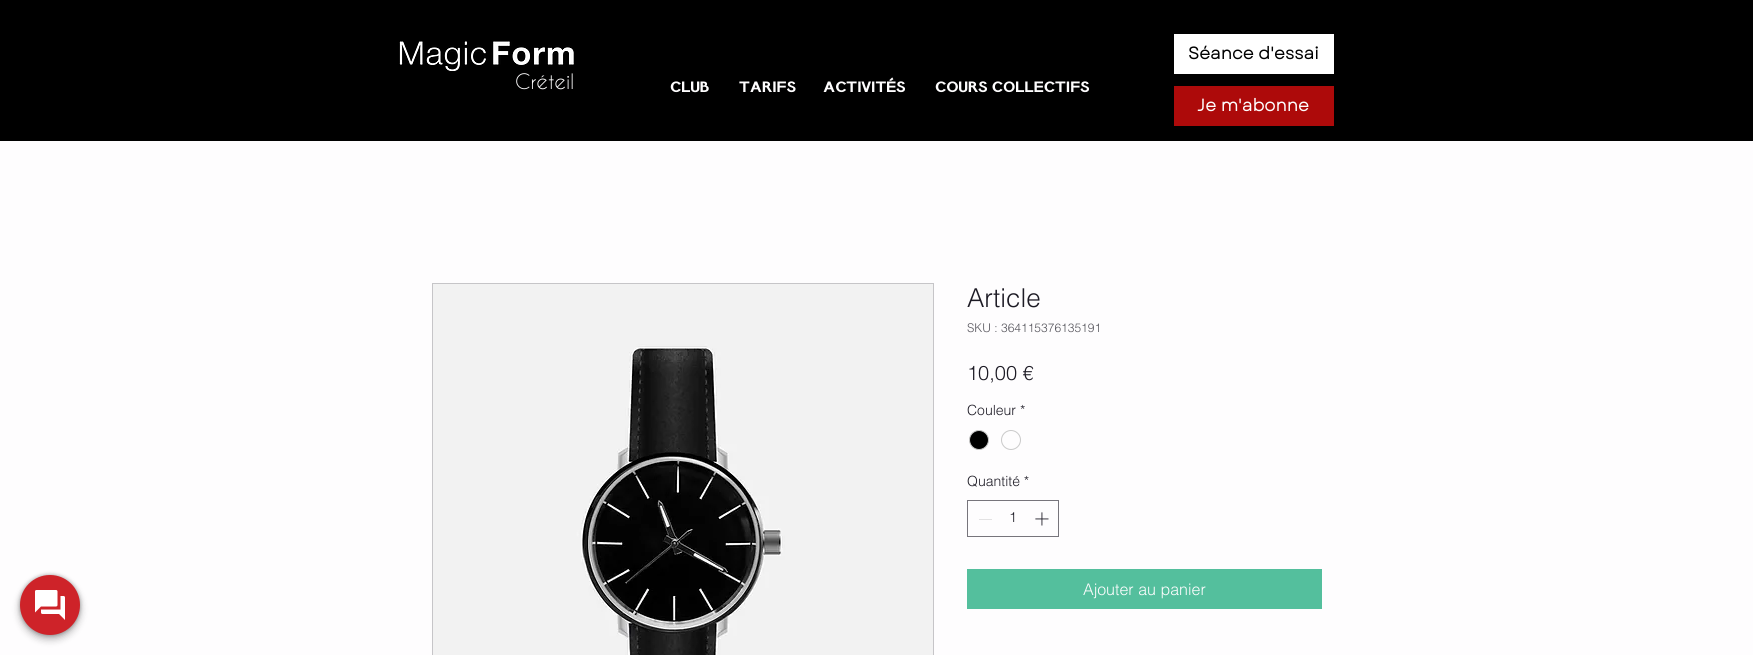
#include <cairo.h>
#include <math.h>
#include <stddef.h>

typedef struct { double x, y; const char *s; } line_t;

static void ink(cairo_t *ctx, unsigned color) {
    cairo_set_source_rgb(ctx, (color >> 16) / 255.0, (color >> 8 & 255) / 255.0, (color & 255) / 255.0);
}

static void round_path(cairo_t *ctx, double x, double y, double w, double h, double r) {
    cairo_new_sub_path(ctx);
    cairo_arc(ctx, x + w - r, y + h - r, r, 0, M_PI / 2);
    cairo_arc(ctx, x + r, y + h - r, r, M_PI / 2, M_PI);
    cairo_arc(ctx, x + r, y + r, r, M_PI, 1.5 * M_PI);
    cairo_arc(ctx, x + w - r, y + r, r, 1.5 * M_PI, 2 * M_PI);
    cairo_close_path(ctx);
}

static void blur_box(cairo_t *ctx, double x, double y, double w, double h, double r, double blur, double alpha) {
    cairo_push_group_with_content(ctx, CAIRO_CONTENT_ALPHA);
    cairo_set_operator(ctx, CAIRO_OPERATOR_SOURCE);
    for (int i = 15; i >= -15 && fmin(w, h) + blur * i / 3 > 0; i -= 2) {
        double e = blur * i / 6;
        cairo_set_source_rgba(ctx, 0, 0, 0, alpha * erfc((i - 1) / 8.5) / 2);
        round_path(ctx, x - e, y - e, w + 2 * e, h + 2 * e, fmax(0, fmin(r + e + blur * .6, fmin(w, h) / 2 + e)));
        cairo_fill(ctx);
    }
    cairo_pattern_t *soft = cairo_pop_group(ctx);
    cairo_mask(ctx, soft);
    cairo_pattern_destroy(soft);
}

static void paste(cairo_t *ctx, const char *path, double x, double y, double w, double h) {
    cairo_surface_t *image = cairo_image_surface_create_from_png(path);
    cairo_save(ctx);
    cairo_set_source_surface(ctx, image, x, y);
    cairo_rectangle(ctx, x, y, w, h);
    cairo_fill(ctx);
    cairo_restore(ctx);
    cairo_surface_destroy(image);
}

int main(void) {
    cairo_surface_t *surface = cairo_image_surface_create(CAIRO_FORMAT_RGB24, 1753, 655);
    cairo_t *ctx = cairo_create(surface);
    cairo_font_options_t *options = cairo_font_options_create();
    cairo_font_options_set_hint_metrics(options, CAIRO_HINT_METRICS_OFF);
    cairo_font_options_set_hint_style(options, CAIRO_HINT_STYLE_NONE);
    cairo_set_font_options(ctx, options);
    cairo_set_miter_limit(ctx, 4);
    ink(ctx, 0xFEFDFE);
    cairo_paint(ctx);
    ink(ctx, 0x000000);
    cairo_rectangle(ctx, 0, 0, 1753, 141);
    cairo_fill(ctx);
    ink(ctx, 0xFFFFFF);
    cairo_rectangle(ctx, 1174, 34, 160, 40);
    cairo_fill(ctx);
    cairo_select_font_face(ctx, "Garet", CAIRO_FONT_SLANT_NORMAL, CAIRO_FONT_WEIGHT_BOLD);
    cairo_set_font_size(ctx, 17);
    ink(ctx, 0x000000);
    cairo_move_to(ctx, 1188, 59);
    cairo_show_text(ctx, "Séance d'essai");
    paste(ctx, "media/1.png", 399, 41, 175, 30);
    cairo_select_font_face(ctx, "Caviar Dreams", CAIRO_FONT_SLANT_NORMAL, CAIRO_FONT_WEIGHT_NORMAL);
    cairo_set_font_size(ctx, 20);
    ink(ctx, 0xFEFDFE);
    cairo_move_to(ctx, 515, 89);
    cairo_show_text(ctx, "Créteil");
    cairo_select_font_face(ctx, "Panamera", CAIRO_FONT_SLANT_NORMAL, CAIRO_FONT_WEIGHT_BOLD);
    cairo_set_font_size(ctx, 15);
    {
        static const line_t items[] = {
            {670, 92, "CLUB"},
            {739, 92, "TARIFS"},
            {823, 92, "ACTIVITÉS"},
            {935, 92, "COURS COLLECTIFS"},
        };
        for (size_t i = 0; i < sizeof items / sizeof *items; i++) {
            cairo_move_to(ctx, items[i].x, items[i].y);
            cairo_show_text(ctx, items[i].s);
        }
    }
    ink(ctx, 0xAD0A0A);
    cairo_rectangle(ctx, 1174, 86, 160, 40);
    cairo_fill(ctx);
    cairo_select_font_face(ctx, "Garet", CAIRO_FONT_SLANT_NORMAL, CAIRO_FONT_WEIGHT_BOLD);
    cairo_set_font_size(ctx, 17);
    ink(ctx, 0xFEFDFE);
    cairo_move_to(ctx, 1197, 111);
    cairo_show_text(ctx, "Je m'abonne");
    cairo_rectangle(ctx, 432.5, 283.5, 501, 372);
    ink(ctx, 0xC6C5C8);
    cairo_set_line_width(ctx, 1);
    cairo_stroke(ctx);
    paste(ctx, "media/2.png", 433, 284, 500, 371);
    cairo_select_font_face(ctx, "helvetica Light", CAIRO_FONT_SLANT_NORMAL, CAIRO_FONT_WEIGHT_NORMAL);
    cairo_set_font_size(ctx, 26);
    ink(ctx, 0x1D1B25);
    cairo_move_to(ctx, 967, 307);
    cairo_show_text(ctx, "Article");
    cairo_set_font_size(ctx, 12);
    ink(ctx, 0x55545B);
    cairo_move_to(ctx, 967, 332);
    cairo_show_text(ctx, "SKU : 364115376135191");
    cairo_set_font_size(ctx, 20);
    ink(ctx, 0x1D1B25);
    cairo_move_to(ctx, 967, 380);
    cairo_show_text(ctx, "10,00 €");
    cairo_set_font_size(ctx, 14);
    cairo_move_to(ctx, 967, 415);
    cairo_show_text(ctx, "Couleur *");
    ink(ctx, 0x000000);
    cairo_new_path(ctx);
    cairo_arc(ctx, 979, 440, 9.5, 0, 2 * M_PI);
    cairo_fill_preserve(ctx);
    ink(ctx, 0xC9C9C9);
    cairo_stroke(ctx);
    cairo_arc(ctx, 1011, 440, 9.5, 0, 2 * M_PI);
    cairo_stroke(ctx);
    ink(ctx, 0x1D1B25);
    cairo_move_to(ctx, 967, 486);
    cairo_show_text(ctx, "Quantité *");
    cairo_rectangle(ctx, 967.5, 500.5, 91, 36);
    ink(ctx, 0x77757C);
    cairo_stroke(ctx);
    ink(ctx, 0xE3E2E3);
    cairo_rectangle(ctx, 979, 519, 13, 1);
    cairo_fill(ctx);
    ink(ctx, 0x1D1B25);
    cairo_move_to(ctx, 1009, 522);
    cairo_show_text(ctx, "1");
    paste(ctx, "media/3.png", 1035, 512, 14, 14);
    ink(ctx, 0x54BF9D);
    cairo_rectangle(ctx, 967, 569, 355, 40);
    cairo_fill(ctx);
    cairo_set_font_size(ctx, 16);
    ink(ctx, 0xFEFDFE);
    cairo_move_to(ctx, 1083, 595);
    cairo_show_text(ctx, "Ajouter au panier");
    ink(ctx, 0x000000);
    blur_box(ctx, 20, 579, 60, 60, 30, 4, 0.3);
    blur_box(ctx, 20, 575, 60, 60, 30, 2, 0.3);
    ink(ctx, 0xCE2329);
    cairo_arc(ctx, 50, 605, 30, 0, 2 * M_PI);
    cairo_fill(ctx);
    paste(ctx, "media/4.png", 35, 590, 30, 30);
    cairo_surface_write_to_png(surface, "image.png");
    cairo_font_options_destroy(options);
    cairo_destroy(ctx);
    cairo_surface_destroy(surface);
    return 0;
}
